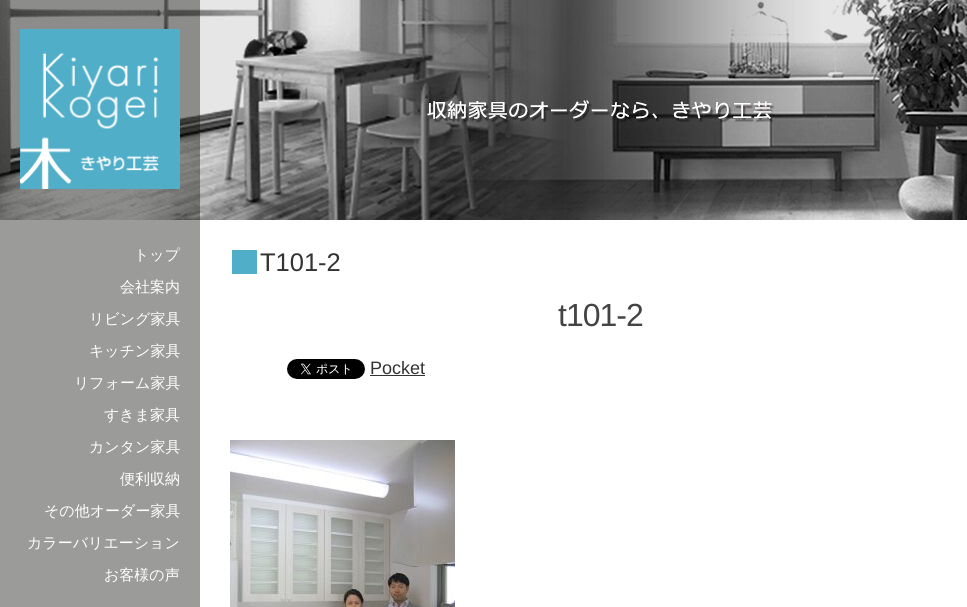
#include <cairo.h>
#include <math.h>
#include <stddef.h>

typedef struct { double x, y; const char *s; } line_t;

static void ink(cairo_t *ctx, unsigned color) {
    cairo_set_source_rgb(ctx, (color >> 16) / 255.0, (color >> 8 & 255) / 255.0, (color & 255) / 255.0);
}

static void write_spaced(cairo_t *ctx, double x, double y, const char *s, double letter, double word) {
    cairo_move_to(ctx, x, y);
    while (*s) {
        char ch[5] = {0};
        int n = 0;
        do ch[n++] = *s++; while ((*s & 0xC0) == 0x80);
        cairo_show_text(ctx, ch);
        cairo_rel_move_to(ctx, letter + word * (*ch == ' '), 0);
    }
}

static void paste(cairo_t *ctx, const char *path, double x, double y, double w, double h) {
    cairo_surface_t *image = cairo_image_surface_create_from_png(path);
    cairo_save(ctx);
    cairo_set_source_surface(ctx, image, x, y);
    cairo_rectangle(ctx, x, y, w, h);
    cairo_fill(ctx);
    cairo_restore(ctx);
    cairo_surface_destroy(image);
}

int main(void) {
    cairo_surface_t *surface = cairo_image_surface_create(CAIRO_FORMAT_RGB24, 967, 607);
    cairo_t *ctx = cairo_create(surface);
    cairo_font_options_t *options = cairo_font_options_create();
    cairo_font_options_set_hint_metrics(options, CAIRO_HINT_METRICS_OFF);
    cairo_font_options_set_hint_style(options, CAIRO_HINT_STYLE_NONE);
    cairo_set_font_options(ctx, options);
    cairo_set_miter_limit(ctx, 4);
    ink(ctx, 0xFFFFFF);
    cairo_paint(ctx);
    paste(ctx, "media/1.png", 0, 0, 967, 220);
    cairo_set_source_rgba(ctx, 0.02, 0.02, 0.004, 0.4);
    cairo_rectangle(ctx, 0, 0, 200, 607);
    cairo_fill(ctx);
    paste(ctx, "media/2.png", 20, 29, 160, 160);
    cairo_select_font_face(ctx, "WenQuanYi Zen Hei Medium", CAIRO_FONT_SLANT_NORMAL, CAIRO_FONT_WEIGHT_NORMAL);
    cairo_set_font_size(ctx, 15);
    ink(ctx, 0xFFFFFF);
    {
        static const line_t items[] = {
            {134, 260, "トップ"},
            {120, 292, "会社案内"},
            {89, 324, "リビング家具"},
            {89, 356, "キッチン家具"},
            {74, 388, "リフォーム家具"},
            {104, 420, "すきま家具"},
            {89, 452, "カンタン家具"},
            {120, 484, "便利収納"},
            {44, 516, "その他オーダー家具"},
            {27, 548, "カラーバリエーション"},
            {104, 580, "お客様の声"},
        };
        for (size_t i = 0; i < sizeof items / sizeof *items; i++) {
            cairo_move_to(ctx, items[i].x, items[i].y);
            cairo_show_text(ctx, items[i].s);
        }
    }
    ink(ctx, 0x50AEC8);
    cairo_rectangle(ctx, 232, 250, 25, 24);
    cairo_fill(ctx);
    cairo_select_font_face(ctx, "Liberation Sans", CAIRO_FONT_SLANT_NORMAL, CAIRO_FONT_WEIGHT_NORMAL);
    cairo_set_font_size(ctx, 25.5);
    ink(ctx, 0x333333);
    cairo_move_to(ctx, 260, 271);
    cairo_show_text(ctx, "T101-2");
    cairo_set_font_size(ctx, 32);
    ink(ctx, 0x444444);
    write_spaced(ctx, 558, 326, "t101-2", -1, 0);
    paste(ctx, "media/3.png", 287, 359, 78, 20);
    cairo_set_font_size(ctx, 18);
    ink(ctx, 0x333333);
    cairo_move_to(ctx, 370, 374);
    cairo_show_text(ctx, "Pocket");
    cairo_rectangle(ctx, 370, 375, 55, 1);
    cairo_fill(ctx);
    paste(ctx, "media/4.png", 230, 440, 225, 167);
    cairo_surface_write_to_png(surface, "image.png");
    cairo_font_options_destroy(options);
    cairo_destroy(ctx);
    cairo_surface_destroy(surface);
    return 0;
}
